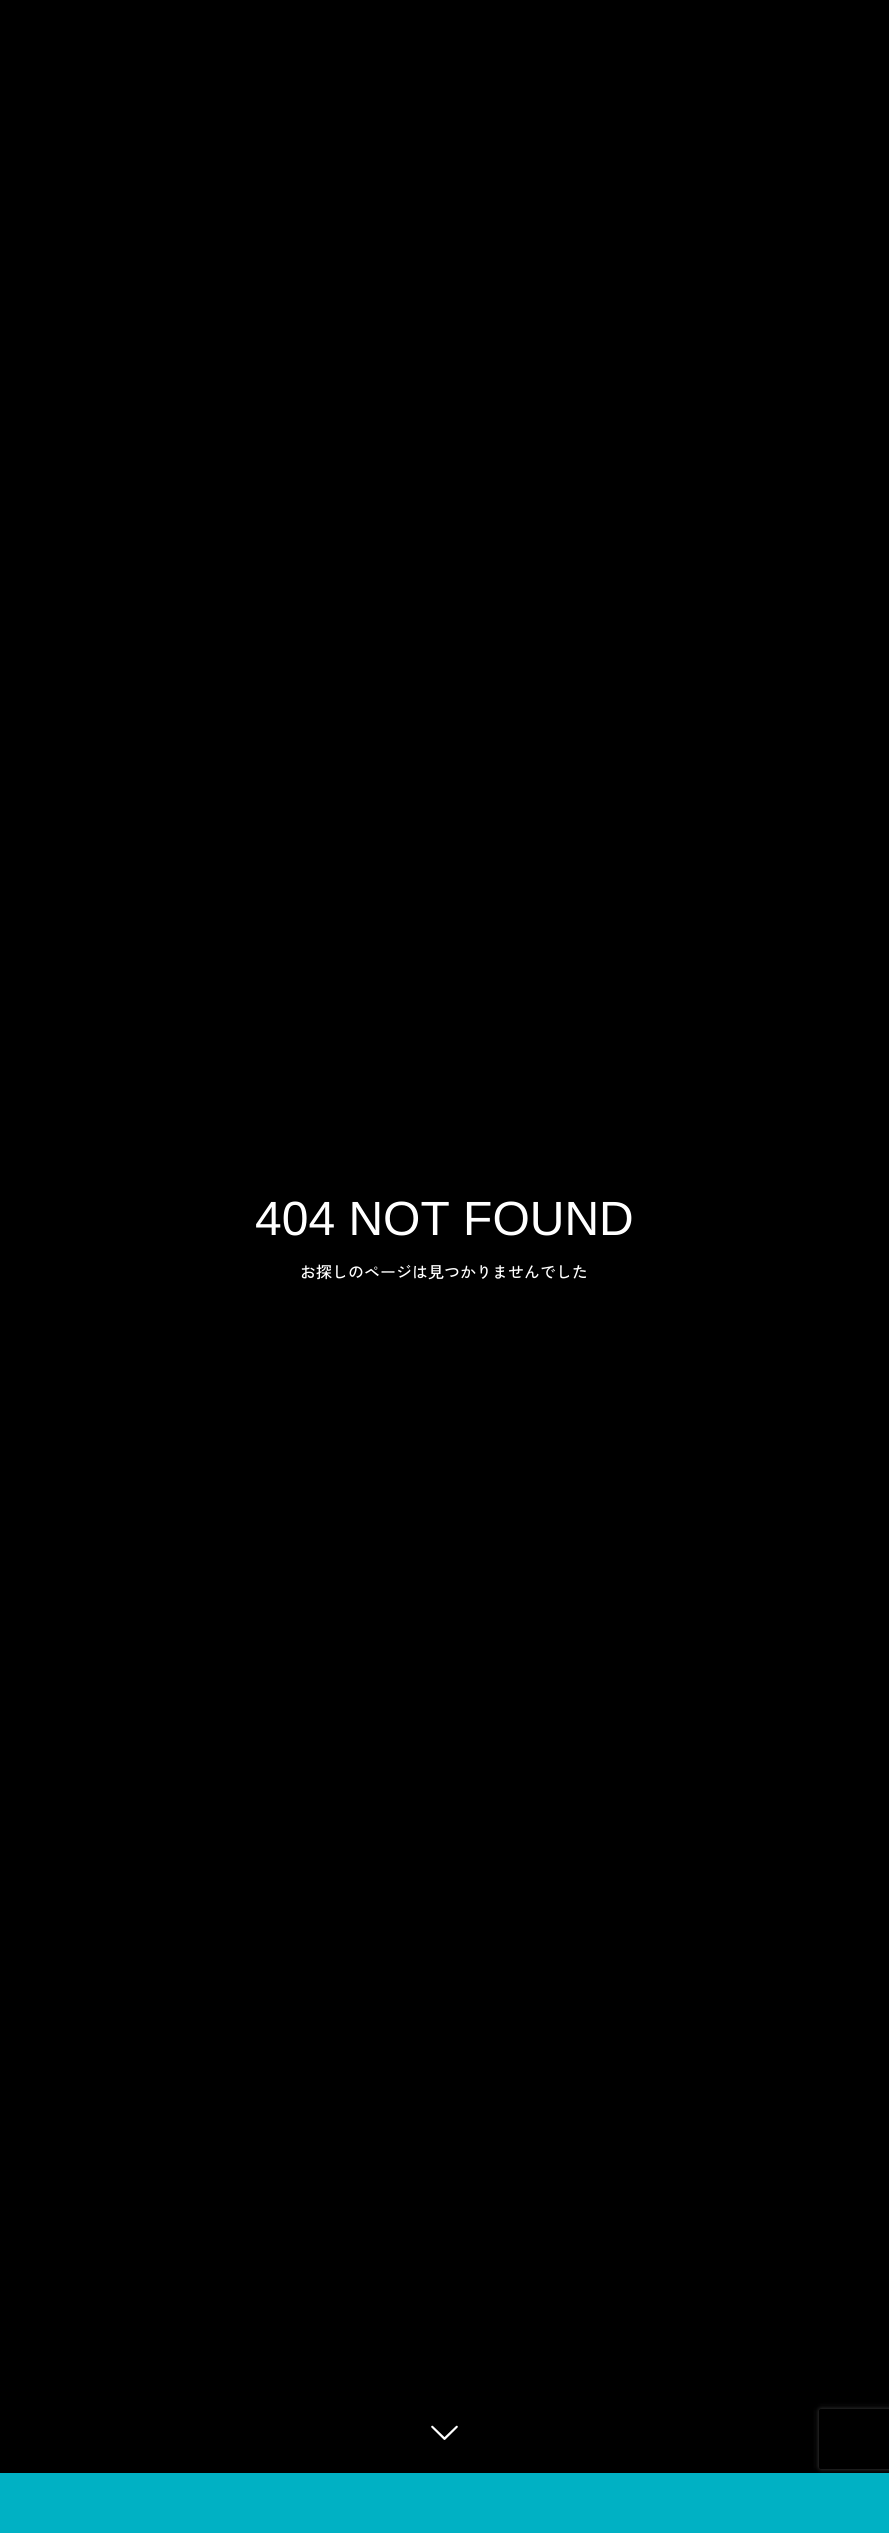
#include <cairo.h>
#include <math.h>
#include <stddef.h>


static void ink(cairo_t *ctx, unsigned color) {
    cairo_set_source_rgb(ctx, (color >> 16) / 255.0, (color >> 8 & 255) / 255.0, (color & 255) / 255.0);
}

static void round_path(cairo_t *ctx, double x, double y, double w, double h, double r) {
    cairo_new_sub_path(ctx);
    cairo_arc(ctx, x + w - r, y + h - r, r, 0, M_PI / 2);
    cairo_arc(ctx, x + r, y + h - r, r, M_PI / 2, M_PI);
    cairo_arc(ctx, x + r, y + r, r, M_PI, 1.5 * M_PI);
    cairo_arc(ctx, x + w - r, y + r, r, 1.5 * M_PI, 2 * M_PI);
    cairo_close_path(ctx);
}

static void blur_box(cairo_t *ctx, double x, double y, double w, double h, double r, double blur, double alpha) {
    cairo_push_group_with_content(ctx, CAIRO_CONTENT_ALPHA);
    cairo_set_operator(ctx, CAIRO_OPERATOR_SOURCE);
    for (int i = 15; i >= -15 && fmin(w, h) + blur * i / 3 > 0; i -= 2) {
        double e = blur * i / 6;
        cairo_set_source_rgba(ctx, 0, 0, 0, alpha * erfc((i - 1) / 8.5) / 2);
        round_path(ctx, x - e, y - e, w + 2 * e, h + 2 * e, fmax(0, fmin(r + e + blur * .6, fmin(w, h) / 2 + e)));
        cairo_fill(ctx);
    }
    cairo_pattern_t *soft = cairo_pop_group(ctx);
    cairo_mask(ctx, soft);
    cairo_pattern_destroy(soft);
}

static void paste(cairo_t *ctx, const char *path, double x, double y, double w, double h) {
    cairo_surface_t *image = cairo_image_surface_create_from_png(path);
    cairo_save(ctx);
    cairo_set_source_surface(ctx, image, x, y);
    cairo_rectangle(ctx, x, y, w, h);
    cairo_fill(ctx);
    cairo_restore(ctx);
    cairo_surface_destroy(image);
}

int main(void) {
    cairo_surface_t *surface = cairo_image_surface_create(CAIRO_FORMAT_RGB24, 889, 2533);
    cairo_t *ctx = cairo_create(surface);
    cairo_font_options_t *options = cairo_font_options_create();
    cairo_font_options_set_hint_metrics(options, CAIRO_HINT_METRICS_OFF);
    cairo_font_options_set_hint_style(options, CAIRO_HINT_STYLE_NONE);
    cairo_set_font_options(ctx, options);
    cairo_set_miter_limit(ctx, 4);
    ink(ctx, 0x00B1C4);
    cairo_paint(ctx);
    ink(ctx, 0x000000);
    cairo_rectangle(ctx, 0, 0, 889, 2473);
    cairo_fill(ctx);
    cairo_select_font_face(ctx, "Liberation Sans", CAIRO_FONT_SLANT_NORMAL, CAIRO_FONT_WEIGHT_NORMAL);
    cairo_set_font_size(ctx, 48);
    ink(ctx, 0xFFFFFF);
    cairo_move_to(ctx, 255, 1235);
    cairo_show_text(ctx, "404 NOT FOUND");
    cairo_select_font_face(ctx, "Zen Kaku Gothic New Medium", CAIRO_FONT_SLANT_NORMAL, CAIRO_FONT_WEIGHT_NORMAL);
    cairo_set_font_size(ctx, 16);
    cairo_move_to(ctx, 300, 1278);
    cairo_show_text(ctx, "お探しのページは見つかりませんでした");
    paste(ctx, "media/1.png", 431, 2425, 27, 15);
    cairo_save(ctx);
    cairo_set_fill_rule(ctx, CAIRO_FILL_RULE_EVEN_ODD);
    cairo_new_path(ctx);
    cairo_move_to(ctx, 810, 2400);
    cairo_line_to(ctx, 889, 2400);
    cairo_line_to(ctx, 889, 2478);
    cairo_line_to(ctx, 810, 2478);
    cairo_close_path(ctx);
    cairo_move_to(ctx, 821, 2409);
    cairo_line_to(ctx, 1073, 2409);
    cairo_curve_to(ctx, 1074, 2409, 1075, 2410, 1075, 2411);
    cairo_line_to(ctx, 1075, 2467);
    cairo_curve_to(ctx, 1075, 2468, 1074, 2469, 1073, 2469);
    cairo_line_to(ctx, 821, 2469);
    cairo_curve_to(ctx, 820, 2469, 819, 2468, 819, 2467);
    cairo_line_to(ctx, 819, 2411);
    cairo_curve_to(ctx, 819, 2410, 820, 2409, 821, 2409);
    cairo_close_path(ctx);
    cairo_clip(ctx);
    ink(ctx, 0x808080);
    blur_box(ctx, 819, 2409, 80, 60, 2, 2.5, 1);
    cairo_restore(ctx);
    cairo_set_source_rgba(ctx, 0, 0, 0, 0.5);
    cairo_rectangle(ctx, 815, 2405, 74, 68);
    cairo_fill(ctx);
    cairo_surface_write_to_png(surface, "image.png");
    cairo_font_options_destroy(options);
    cairo_destroy(ctx);
    cairo_surface_destroy(surface);
    return 0;
}
